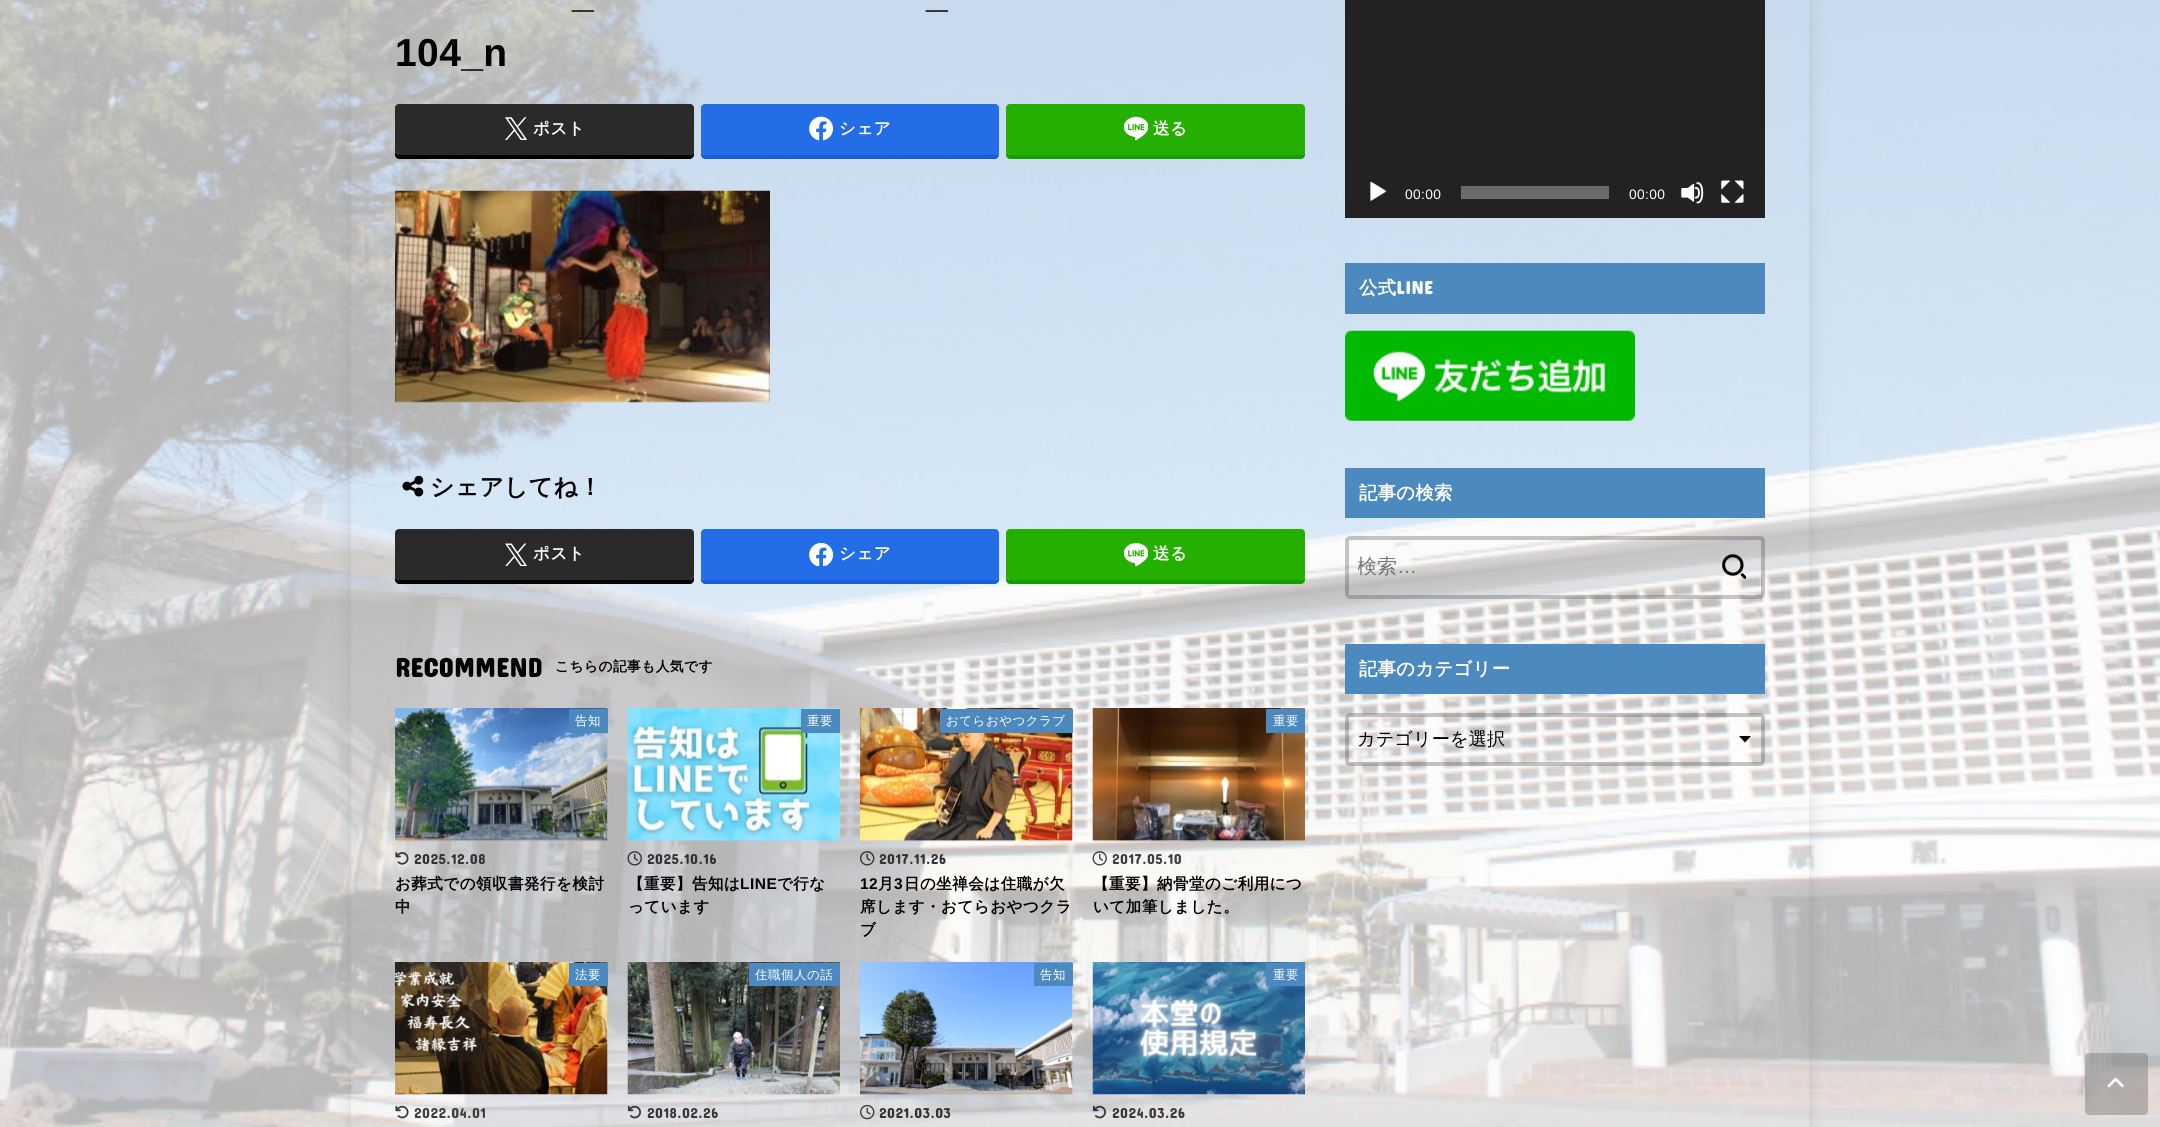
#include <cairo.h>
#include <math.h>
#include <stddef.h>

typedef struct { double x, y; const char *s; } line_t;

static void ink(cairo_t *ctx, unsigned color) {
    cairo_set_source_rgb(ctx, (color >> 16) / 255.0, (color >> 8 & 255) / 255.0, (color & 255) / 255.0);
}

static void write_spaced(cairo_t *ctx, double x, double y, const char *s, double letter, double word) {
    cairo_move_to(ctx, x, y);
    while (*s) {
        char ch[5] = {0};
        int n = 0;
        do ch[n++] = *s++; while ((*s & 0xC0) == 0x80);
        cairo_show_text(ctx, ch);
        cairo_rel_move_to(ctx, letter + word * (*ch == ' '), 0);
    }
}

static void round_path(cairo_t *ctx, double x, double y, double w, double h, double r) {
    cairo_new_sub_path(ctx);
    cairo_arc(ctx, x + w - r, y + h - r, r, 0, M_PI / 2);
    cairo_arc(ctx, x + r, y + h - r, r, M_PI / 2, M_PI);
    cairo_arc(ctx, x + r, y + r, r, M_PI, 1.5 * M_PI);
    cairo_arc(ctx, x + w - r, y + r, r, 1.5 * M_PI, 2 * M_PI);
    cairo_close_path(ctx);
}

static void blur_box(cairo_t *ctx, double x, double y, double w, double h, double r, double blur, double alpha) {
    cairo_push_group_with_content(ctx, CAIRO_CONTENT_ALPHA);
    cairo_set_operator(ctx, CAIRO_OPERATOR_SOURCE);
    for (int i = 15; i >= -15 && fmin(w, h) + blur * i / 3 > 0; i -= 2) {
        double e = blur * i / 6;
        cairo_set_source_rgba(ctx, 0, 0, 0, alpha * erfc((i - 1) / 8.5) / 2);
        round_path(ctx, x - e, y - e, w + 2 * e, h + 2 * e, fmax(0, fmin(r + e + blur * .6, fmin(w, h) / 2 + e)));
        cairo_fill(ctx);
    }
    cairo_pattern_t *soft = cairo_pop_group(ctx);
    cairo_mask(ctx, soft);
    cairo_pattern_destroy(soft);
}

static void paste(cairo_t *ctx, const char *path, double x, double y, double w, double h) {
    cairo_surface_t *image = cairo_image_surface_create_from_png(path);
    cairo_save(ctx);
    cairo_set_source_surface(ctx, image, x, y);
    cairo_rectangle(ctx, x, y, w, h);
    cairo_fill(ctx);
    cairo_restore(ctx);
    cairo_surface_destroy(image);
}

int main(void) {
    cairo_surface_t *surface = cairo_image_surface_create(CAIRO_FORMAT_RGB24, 2160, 1127);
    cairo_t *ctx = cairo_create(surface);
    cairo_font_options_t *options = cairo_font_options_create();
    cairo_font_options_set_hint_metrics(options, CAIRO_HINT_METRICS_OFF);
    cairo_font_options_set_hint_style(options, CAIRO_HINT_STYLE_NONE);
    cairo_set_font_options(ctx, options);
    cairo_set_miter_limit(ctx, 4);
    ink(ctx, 0xFFFFFF);
    cairo_paint(ctx);
    paste(ctx, "media/1.png", 0, 0, 2160, 1127);
    cairo_save(ctx);
    cairo_set_fill_rule(ctx, CAIRO_FILL_RULE_EVEN_ODD);
    cairo_new_path(ctx);
    cairo_move_to(ctx, 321, 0);
    cairo_line_to(ctx, 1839, 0);
    cairo_line_to(ctx, 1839, 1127);
    cairo_line_to(ctx, 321, 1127);
    cairo_close_path(ctx);
    cairo_move_to(ctx, 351, -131);
    cairo_line_to(ctx, 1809, -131);
    cairo_line_to(ctx, 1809, 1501);
    cairo_line_to(ctx, 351, 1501);
    cairo_close_path(ctx);
    cairo_clip(ctx);
    ink(ctx, 0x666666);
    blur_box(ctx, 351, -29, 1458, 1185, 0, 9.5, 0.2);
    cairo_restore(ctx);
    cairo_select_font_face(ctx, "Liberation Sans", CAIRO_FONT_SLANT_NORMAL, CAIRO_FONT_WEIGHT_BOLD);
    cairo_set_font_size(ctx, 39);
    ink(ctx, 0x000000);
    {
        static const line_t items[] = {
            {572, 7, "_"},
            {926, 7, "_"},
            {395, 66, "104_n"},
        };
        for (size_t i = 0; i < sizeof items / sizeof *items; i++) {
            write_spaced(ctx, items[i].x, items[i].y, items[i].s, 0.4, 0);
        }
    }
    cairo_new_path(ctx);
    cairo_move_to(ctx, 395, 151);
    cairo_line_to(ctx, 395, 155);
    cairo_curve_to(ctx, 395, 157, 397, 159, 399, 159);
    cairo_line_to(ctx, 690, 159);
    cairo_curve_to(ctx, 692, 159, 694, 157, 694, 155);
    cairo_line_to(ctx, 694, 111);
    cairo_line_to(ctx, 694, 151);
    cairo_curve_to(ctx, 694, 153, 692, 155, 690, 155);
    cairo_line_to(ctx, 399, 155);
    cairo_curve_to(ctx, 397, 155, 395, 153, 395, 151);
    cairo_close_path(ctx);
    cairo_fill(ctx);
    ink(ctx, 0x2A2A2A);
    round_path(ctx, 395, 104, 299, 51, 4);
    cairo_fill(ctx);
    paste(ctx, "media/2.png", 505, 117, 23, 23);
    cairo_select_font_face(ctx, "WenQuanYi Zen Hei", CAIRO_FONT_SLANT_NORMAL, CAIRO_FONT_WEIGHT_BOLD);
    cairo_set_font_size(ctx, 16.5);
    ink(ctx, 0xFFFFFF);
    write_spaced(ctx, 533, 134, "ポスト", 0.5, 0);
    ink(ctx, 0x185ED8);
    cairo_new_path(ctx);
    cairo_move_to(ctx, 701, 111);
    cairo_line_to(ctx, 701, 155);
    cairo_curve_to(ctx, 701, 157, 703, 159, 705, 159);
    cairo_line_to(ctx, 995, 159);
    cairo_curve_to(ctx, 997, 159, 999, 157, 999, 155);
    cairo_line_to(ctx, 999, 111);
    cairo_line_to(ctx, 999, 151);
    cairo_curve_to(ctx, 999, 153, 997, 155, 995, 155);
    cairo_line_to(ctx, 705, 155);
    cairo_curve_to(ctx, 703, 155, 701, 153, 701, 151);
    cairo_close_path(ctx);
    cairo_fill(ctx);
    ink(ctx, 0x236EE7);
    round_path(ctx, 701, 104, 298, 51, 4);
    cairo_fill(ctx);
    paste(ctx, "media/3.png", 809, 116, 24, 25);
    ink(ctx, 0xFFFFFF);
    write_spaced(ctx, 839, 134, "シェア", 0.5, 0);
    ink(ctx, 0x149E00);
    cairo_new_path(ctx);
    cairo_move_to(ctx, 1006, 111);
    cairo_line_to(ctx, 1006, 155);
    cairo_curve_to(ctx, 1006, 157, 1008, 159, 1010, 159);
    cairo_line_to(ctx, 1301, 159);
    cairo_curve_to(ctx, 1303, 159, 1305, 157, 1305, 155);
    cairo_line_to(ctx, 1305, 151);
    cairo_curve_to(ctx, 1305, 153, 1303, 155, 1301, 155);
    cairo_line_to(ctx, 1010, 155);
    cairo_curve_to(ctx, 1008, 155, 1006, 153, 1006, 151);
    cairo_close_path(ctx);
    cairo_fill(ctx);
    ink(ctx, 0x25AF00);
    round_path(ctx, 1006, 104, 299, 51, 4);
    cairo_fill(ctx);
    paste(ctx, "media/4.png", 1124, 116, 24, 25);
    ink(ctx, 0xFFFFFF);
    write_spaced(ctx, 1153, 134, "送る", 0.5, 0);
    paste(ctx, "media/5.png", 395, 190, 375, 213);
    paste(ctx, "media/6.png", 402, 475, 22, 22);
    cairo_set_font_size(ctx, 23.75);
    ink(ctx, 0x000000);
    write_spaced(ctx, 430, 495, "シェアしてね！", 0.4, 0);
    cairo_new_path(ctx);
    cairo_move_to(ctx, 395, 576);
    cairo_line_to(ctx, 395, 580);
    cairo_curve_to(ctx, 395, 582, 397, 584, 399, 584);
    cairo_line_to(ctx, 690, 584);
    cairo_curve_to(ctx, 692, 584, 694, 582, 694, 580);
    cairo_line_to(ctx, 694, 536);
    cairo_line_to(ctx, 694, 576);
    cairo_curve_to(ctx, 694, 578, 692, 580, 690, 580);
    cairo_line_to(ctx, 399, 580);
    cairo_curve_to(ctx, 397, 580, 395, 578, 395, 576);
    cairo_close_path(ctx);
    cairo_fill(ctx);
    ink(ctx, 0x2A2A2A);
    round_path(ctx, 395, 529, 299, 51, 4);
    cairo_fill(ctx);
    paste(ctx, "media/7.png", 505, 543, 22, 23);
    cairo_set_font_size(ctx, 16.5);
    ink(ctx, 0xFFFFFF);
    write_spaced(ctx, 533, 559, "ポスト", 0.5, 0);
    ink(ctx, 0x185ED8);
    cairo_new_path(ctx);
    cairo_move_to(ctx, 701, 536);
    cairo_line_to(ctx, 701, 580);
    cairo_curve_to(ctx, 701, 582, 703, 584, 705, 584);
    cairo_line_to(ctx, 995, 584);
    cairo_curve_to(ctx, 997, 584, 999, 582, 999, 580);
    cairo_line_to(ctx, 999, 536);
    cairo_line_to(ctx, 999, 576);
    cairo_curve_to(ctx, 999, 578, 997, 580, 995, 580);
    cairo_line_to(ctx, 705, 580);
    cairo_curve_to(ctx, 703, 580, 701, 578, 701, 576);
    cairo_close_path(ctx);
    cairo_fill(ctx);
    ink(ctx, 0x236EE7);
    round_path(ctx, 701, 529, 298, 51, 4);
    cairo_fill(ctx);
    paste(ctx, "media/8.png", 809, 543, 24, 23);
    ink(ctx, 0xFFFFFF);
    write_spaced(ctx, 839, 559, "シェア", 0.5, 0);
    ink(ctx, 0x149E00);
    cairo_new_path(ctx);
    cairo_move_to(ctx, 1006, 536);
    cairo_line_to(ctx, 1006, 580);
    cairo_curve_to(ctx, 1006, 582, 1008, 584, 1010, 584);
    cairo_line_to(ctx, 1301, 584);
    cairo_curve_to(ctx, 1303, 584, 1305, 582, 1305, 580);
    cairo_line_to(ctx, 1305, 576);
    cairo_curve_to(ctx, 1305, 578, 1303, 580, 1301, 580);
    cairo_line_to(ctx, 1010, 580);
    cairo_curve_to(ctx, 1008, 580, 1006, 578, 1006, 576);
    cairo_close_path(ctx);
    cairo_fill(ctx);
    ink(ctx, 0x25AF00);
    round_path(ctx, 1006, 529, 299, 51, 4);
    cairo_fill(ctx);
    paste(ctx, "media/9.png", 1124, 543, 24, 23);
    ink(ctx, 0xFFFFFF);
    write_spaced(ctx, 1153, 559, "送る", 0.5, 0);
    cairo_select_font_face(ctx, "Concert One", CAIRO_FONT_SLANT_NORMAL, CAIRO_FONT_WEIGHT_BOLD);
    cairo_set_font_size(ctx, 26.75);
    ink(ctx, 0x000000);
    write_spaced(ctx, 395, 677, "RECOMMEND", 0.4, 0);
    cairo_select_font_face(ctx, "WenQuanYi Zen Hei", CAIRO_FONT_SLANT_NORMAL, CAIRO_FONT_WEIGHT_BOLD);
    cairo_set_font_size(ctx, 13.75);
    write_spaced(ctx, 555, 671, "こちらの記事も人気です", 0.4, 0);
    paste(ctx, "media/10.png", 395, 708, 213, 134);
    ink(ctx, 0x4C89BF);
    cairo_rectangle(ctx, 569, 709, 39, 24);
    cairo_fill(ctx);
    cairo_select_font_face(ctx, "WenQuanYi Zen Hei Medium", CAIRO_FONT_SLANT_NORMAL, CAIRO_FONT_WEIGHT_NORMAL);
    cairo_set_font_size(ctx, 12.5);
    ink(ctx, 0xFFFFFF);
    write_spaced(ctx, 575, 725, "告知", 0.5, 0);
    paste(ctx, "media/11.png", 395, 852, 14, 13);
    cairo_select_font_face(ctx, "Concert One", CAIRO_FONT_SLANT_NORMAL, CAIRO_FONT_WEIGHT_NORMAL);
    cairo_set_font_size(ctx, 14.5);
    ink(ctx, 0x323232);
    write_spaced(ctx, 414, 864, "2025.12.08", 0.5, 0);
    cairo_select_font_face(ctx, "WenQuanYi Zen Hei", CAIRO_FONT_SLANT_NORMAL, CAIRO_FONT_WEIGHT_BOLD);
    cairo_set_font_size(ctx, 15.5);
    ink(ctx, 0x000000);
    write_spaced(ctx, 395, 889, "お葬式での領収書発行を検討", 0.5, 0);
    write_spaced(ctx, 395, 912, "中", 0.5, 0);
    paste(ctx, "media/12.png", 627, 708, 213, 134);
    ink(ctx, 0x4C89BF);
    cairo_rectangle(ctx, 801, 709, 39, 24);
    cairo_fill(ctx);
    cairo_select_font_face(ctx, "WenQuanYi Zen Hei Medium", CAIRO_FONT_SLANT_NORMAL, CAIRO_FONT_WEIGHT_NORMAL);
    cairo_set_font_size(ctx, 12.5);
    ink(ctx, 0xFFFFFF);
    write_spaced(ctx, 807, 725, "重要", 0.5, 0);
    paste(ctx, "media/13.png", 627, 851, 15, 15);
    cairo_select_font_face(ctx, "Concert One", CAIRO_FONT_SLANT_NORMAL, CAIRO_FONT_WEIGHT_NORMAL);
    cairo_set_font_size(ctx, 14.5);
    ink(ctx, 0x323232);
    write_spaced(ctx, 647, 864, "2025.10.16", 0.5, 0);
    cairo_select_font_face(ctx, "WenQuanYi Zen Hei", CAIRO_FONT_SLANT_NORMAL, CAIRO_FONT_WEIGHT_BOLD);
    cairo_set_font_size(ctx, 15.5);
    ink(ctx, 0x000000);
    write_spaced(ctx, 628, 889, "【重要】告知は", 0.5, 0);
    cairo_select_font_face(ctx, "Liberation Sans", CAIRO_FONT_SLANT_NORMAL, CAIRO_FONT_WEIGHT_BOLD);
    write_spaced(ctx, 740, 889, "LINE", 0.5, 0);
    cairo_select_font_face(ctx, "WenQuanYi Zen Hei", CAIRO_FONT_SLANT_NORMAL, CAIRO_FONT_WEIGHT_BOLD);
    write_spaced(ctx, 777, 889, "で行な", 0.5, 0);
    write_spaced(ctx, 628, 912, "っています", 0.5, 0);
    paste(ctx, "media/14.png", 860, 708, 213, 134);
    ink(ctx, 0x4C89BF);
    cairo_rectangle(ctx, 940, 709, 133, 24);
    cairo_fill(ctx);
    cairo_select_font_face(ctx, "WenQuanYi Zen Hei Medium", CAIRO_FONT_SLANT_NORMAL, CAIRO_FONT_WEIGHT_NORMAL);
    cairo_set_font_size(ctx, 12.5);
    ink(ctx, 0xFFFFFF);
    write_spaced(ctx, 946, 725, "おてらおやつクラブ", 0.5, 0);
    paste(ctx, "media/15.png", 860, 851, 15, 15);
    cairo_select_font_face(ctx, "Concert One", CAIRO_FONT_SLANT_NORMAL, CAIRO_FONT_WEIGHT_NORMAL);
    cairo_set_font_size(ctx, 14.5);
    ink(ctx, 0x323232);
    write_spaced(ctx, 879, 864, "2017.11.26", 0.5, 0);
    cairo_select_font_face(ctx, "Liberation Sans", CAIRO_FONT_SLANT_NORMAL, CAIRO_FONT_WEIGHT_BOLD);
    cairo_set_font_size(ctx, 15.5);
    ink(ctx, 0x000000);
    write_spaced(ctx, 860, 889, "12", 0.5, 0);
    cairo_select_font_face(ctx, "WenQuanYi Zen Hei", CAIRO_FONT_SLANT_NORMAL, CAIRO_FONT_WEIGHT_BOLD);
    write_spaced(ctx, 878, 889, "月", 0.5, 0);
    cairo_select_font_face(ctx, "Liberation Sans", CAIRO_FONT_SLANT_NORMAL, CAIRO_FONT_WEIGHT_BOLD);
    write_spaced(ctx, 894, 889, "3", 0.5, 0);
    cairo_select_font_face(ctx, "WenQuanYi Zen Hei", CAIRO_FONT_SLANT_NORMAL, CAIRO_FONT_WEIGHT_BOLD);
    {
        static const line_t items[] = {
            {904, 889, "日の坐禅会は住職が欠"},
            {860, 912, "席します・おてらおやつクラ"},
            {860, 935, "ブ"},
        };
        for (size_t i = 0; i < sizeof items / sizeof *items; i++) {
            write_spaced(ctx, items[i].x, items[i].y, items[i].s, 0.5, 0);
        }
    }
    paste(ctx, "media/16.png", 1092, 708, 213, 134);
    ink(ctx, 0x4C89BF);
    cairo_rectangle(ctx, 1266, 709, 39, 24);
    cairo_fill(ctx);
    cairo_select_font_face(ctx, "WenQuanYi Zen Hei Medium", CAIRO_FONT_SLANT_NORMAL, CAIRO_FONT_WEIGHT_NORMAL);
    cairo_set_font_size(ctx, 12.5);
    ink(ctx, 0xFFFFFF);
    write_spaced(ctx, 1273, 725, "重要", 0.5, 0);
    paste(ctx, "media/17.png", 1092, 851, 15, 15);
    cairo_select_font_face(ctx, "Concert One", CAIRO_FONT_SLANT_NORMAL, CAIRO_FONT_WEIGHT_NORMAL);
    cairo_set_font_size(ctx, 14.5);
    ink(ctx, 0x3E3E3D);
    write_spaced(ctx, 1112, 864, "2017.05.10", 0.5, 0);
    cairo_select_font_face(ctx, "WenQuanYi Zen Hei", CAIRO_FONT_SLANT_NORMAL, CAIRO_FONT_WEIGHT_BOLD);
    cairo_set_font_size(ctx, 15.5);
    ink(ctx, 0x000000);
    write_spaced(ctx, 1093, 889, "【重要】納骨堂のご利用につ", 0.5, 0);
    write_spaced(ctx, 1093, 912, "いて加筆しました。", 0.5, 0);
    paste(ctx, "media/18.png", 395, 962, 213, 133);
    ink(ctx, 0x4C89BF);
    cairo_rectangle(ctx, 569, 963, 39, 23);
    cairo_fill(ctx);
    cairo_select_font_face(ctx, "WenQuanYi Zen Hei Medium", CAIRO_FONT_SLANT_NORMAL, CAIRO_FONT_WEIGHT_NORMAL);
    cairo_set_font_size(ctx, 12.5);
    ink(ctx, 0xFFFFFF);
    write_spaced(ctx, 575, 979, "法要", 0.5, 0);
    paste(ctx, "media/19.png", 395, 1105, 14, 14);
    cairo_select_font_face(ctx, "Concert One", CAIRO_FONT_SLANT_NORMAL, CAIRO_FONT_WEIGHT_NORMAL);
    cairo_set_font_size(ctx, 14.5);
    ink(ctx, 0x3E3E3D);
    write_spaced(ctx, 414, 1118, "2022.04.01", 0.5, 0);
    paste(ctx, "media/20.png", 627, 962, 213, 133);
    ink(ctx, 0x4C89BF);
    cairo_rectangle(ctx, 749, 963, 91, 23);
    cairo_fill(ctx);
    cairo_select_font_face(ctx, "WenQuanYi Zen Hei Medium", CAIRO_FONT_SLANT_NORMAL, CAIRO_FONT_WEIGHT_NORMAL);
    cairo_set_font_size(ctx, 12.5);
    ink(ctx, 0xFFFFFF);
    write_spaced(ctx, 755, 979, "住職個人の話", 0.5, 0);
    paste(ctx, "media/21.png", 627, 1105, 14, 14);
    cairo_select_font_face(ctx, "Concert One", CAIRO_FONT_SLANT_NORMAL, CAIRO_FONT_WEIGHT_NORMAL);
    cairo_set_font_size(ctx, 14.5);
    ink(ctx, 0x373838);
    write_spaced(ctx, 647, 1118, "2018.02.26", 0.5, 0);
    paste(ctx, "media/22.png", 860, 962, 213, 133);
    ink(ctx, 0x4C89BF);
    cairo_rectangle(ctx, 1034, 963, 39, 23);
    cairo_fill(ctx);
    cairo_select_font_face(ctx, "WenQuanYi Zen Hei Medium", CAIRO_FONT_SLANT_NORMAL, CAIRO_FONT_WEIGHT_NORMAL);
    cairo_set_font_size(ctx, 12.5);
    ink(ctx, 0xFFFFFF);
    write_spaced(ctx, 1040, 979, "告知", 0.5, 0);
    paste(ctx, "media/23.png", 860, 1104, 15, 16);
    cairo_select_font_face(ctx, "Concert One", CAIRO_FONT_SLANT_NORMAL, CAIRO_FONT_WEIGHT_NORMAL);
    cairo_set_font_size(ctx, 14.5);
    ink(ctx, 0x323232);
    write_spaced(ctx, 879, 1118, "2021.03.03", 0.5, 0);
    paste(ctx, "media/24.png", 1092, 962, 213, 133);
    ink(ctx, 0x4C89BF);
    cairo_rectangle(ctx, 1266, 963, 39, 23);
    cairo_fill(ctx);
    cairo_select_font_face(ctx, "WenQuanYi Zen Hei Medium", CAIRO_FONT_SLANT_NORMAL, CAIRO_FONT_WEIGHT_NORMAL);
    cairo_set_font_size(ctx, 12.5);
    ink(ctx, 0xFFFFFF);
    write_spaced(ctx, 1273, 979, "重要", 0.5, 0);
    paste(ctx, "media/25.png", 1092, 1105, 14, 14);
    cairo_select_font_face(ctx, "Concert One", CAIRO_FONT_SLANT_NORMAL, CAIRO_FONT_WEIGHT_NORMAL);
    cairo_set_font_size(ctx, 14.5);
    ink(ctx, 0x373838);
    write_spaced(ctx, 1112, 1118, "2024.03.26", 0.5, 0);
    ink(ctx, 0x222222);
    cairo_rectangle(ctx, 1345, 0, 420, 218);
    cairo_fill(ctx);
    paste(ctx, "media/26.png", 1370, 181, 16, 20);
    cairo_select_font_face(ctx, "Liberation Sans", CAIRO_FONT_SLANT_NORMAL, CAIRO_FONT_WEIGHT_NORMAL);
    cairo_set_font_size(ctx, 13.75);
    ink(ctx, 0xFFFFFF);
    write_spaced(ctx, 1405, 199, "00:00", 0.4, 0);
    ink(ctx, 0x6B6B6B);
    cairo_rectangle(ctx, 1461, 186, 148, 13);
    cairo_fill(ctx);
    ink(ctx, 0xFFFFFF);
    write_spaced(ctx, 1629, 199, "00:00", 0.4, 0);
    paste(ctx, "media/27.png", 1681, 182, 23, 22);
    paste(ctx, "media/28.png", 1721, 180, 23, 23);
    ink(ctx, 0x4C89BF);
    cairo_rectangle(ctx, 1345, 263, 420, 51);
    cairo_fill(ctx);
    cairo_select_font_face(ctx, "WenQuanYi Zen Hei", CAIRO_FONT_SLANT_NORMAL, CAIRO_FONT_WEIGHT_BOLD);
    cairo_set_font_size(ctx, 18.25);
    ink(ctx, 0xFFFFFF);
    write_spaced(ctx, 1359, 294, "公式", 0.4, 0);
    cairo_select_font_face(ctx, "Concert One", CAIRO_FONT_SLANT_NORMAL, CAIRO_FONT_WEIGHT_BOLD);
    write_spaced(ctx, 1396, 294, "LINE", 0.4, 0);
    paste(ctx, "media/29.png", 1345, 330, 290, 91);
    ink(ctx, 0x4C89BF);
    cairo_rectangle(ctx, 1345, 468, 420, 50);
    cairo_fill(ctx);
    cairo_select_font_face(ctx, "WenQuanYi Zen Hei", CAIRO_FONT_SLANT_NORMAL, CAIRO_FONT_WEIGHT_BOLD);
    ink(ctx, 0xFFFFFF);
    write_spaced(ctx, 1359, 499, "記事の検索", 0.4, 0);
    round_path(ctx, 1347, 538, 416, 59, 3);
    cairo_set_source_rgba(ctx, 0.259, 0.259, 0.259, 0.3);
    cairo_set_line_width(ctx, 4);
    cairo_stroke(ctx);
    cairo_save(ctx);
    cairo_rectangle(ctx, 1358, 555, 348, 26);
    cairo_clip(ctx);
    cairo_select_font_face(ctx, "WenQuanYi Zen Hei Medium", CAIRO_FONT_SLANT_NORMAL, CAIRO_FONT_WEIGHT_NORMAL);
    cairo_set_font_size(ctx, 20);
    ink(ctx, 0x757575);
    cairo_move_to(ctx, 1357, 573);
    cairo_show_text(ctx, "検索");
    cairo_restore(ctx);
    cairo_select_font_face(ctx, "Liberation Sans", CAIRO_FONT_SLANT_NORMAL, CAIRO_FONT_WEIGHT_NORMAL);
    cairo_set_font_size(ctx, 20);
    ink(ctx, 0x757575);
    cairo_move_to(ctx, 1397, 573);
    cairo_show_text(ctx, "…");
    paste(ctx, "media/30.png", 1722, 554, 24, 25);
    ink(ctx, 0x4C89BF);
    cairo_rectangle(ctx, 1345, 644, 420, 50);
    cairo_fill(ctx);
    cairo_select_font_face(ctx, "WenQuanYi Zen Hei", CAIRO_FONT_SLANT_NORMAL, CAIRO_FONT_WEIGHT_BOLD);
    cairo_set_font_size(ctx, 18.25);
    ink(ctx, 0xFFFFFF);
    write_spaced(ctx, 1359, 675, "記事のカテゴリー", 0.4, 0);
    ink(ctx, 0x000000);
    cairo_new_path(ctx);
    cairo_move_to(ctx, 1739, 736);
    cairo_line_to(ctx, 1751, 736);
    cairo_line_to(ctx, 1745, 742.5);
    cairo_close_path(ctx);
    cairo_fill(ctx);
    round_path(ctx, 1347, 715, 416, 49, 3);
    cairo_set_source_rgba(ctx, 0.259, 0.259, 0.259, 0.3);
    cairo_stroke(ctx);
    cairo_select_font_face(ctx, "WenQuanYi Zen Hei Medium", CAIRO_FONT_SLANT_NORMAL, CAIRO_FONT_WEIGHT_NORMAL);
    ink(ctx, 0x000000);
    cairo_move_to(ctx, 1357, 745);
    cairo_show_text(ctx, "カテゴリーを選択");
    cairo_set_source_rgba(ctx, 0.502, 0.502, 0.502, 0.5);
    round_path(ctx, 2085, 1053, 63, 62, 4);
    cairo_fill(ctx);
    paste(ctx, "media/31.png", 2107, 1077, 17, 11);
    cairo_surface_write_to_png(surface, "image.png");
    cairo_font_options_destroy(options);
    cairo_destroy(ctx);
    cairo_surface_destroy(surface);
    return 0;
}
